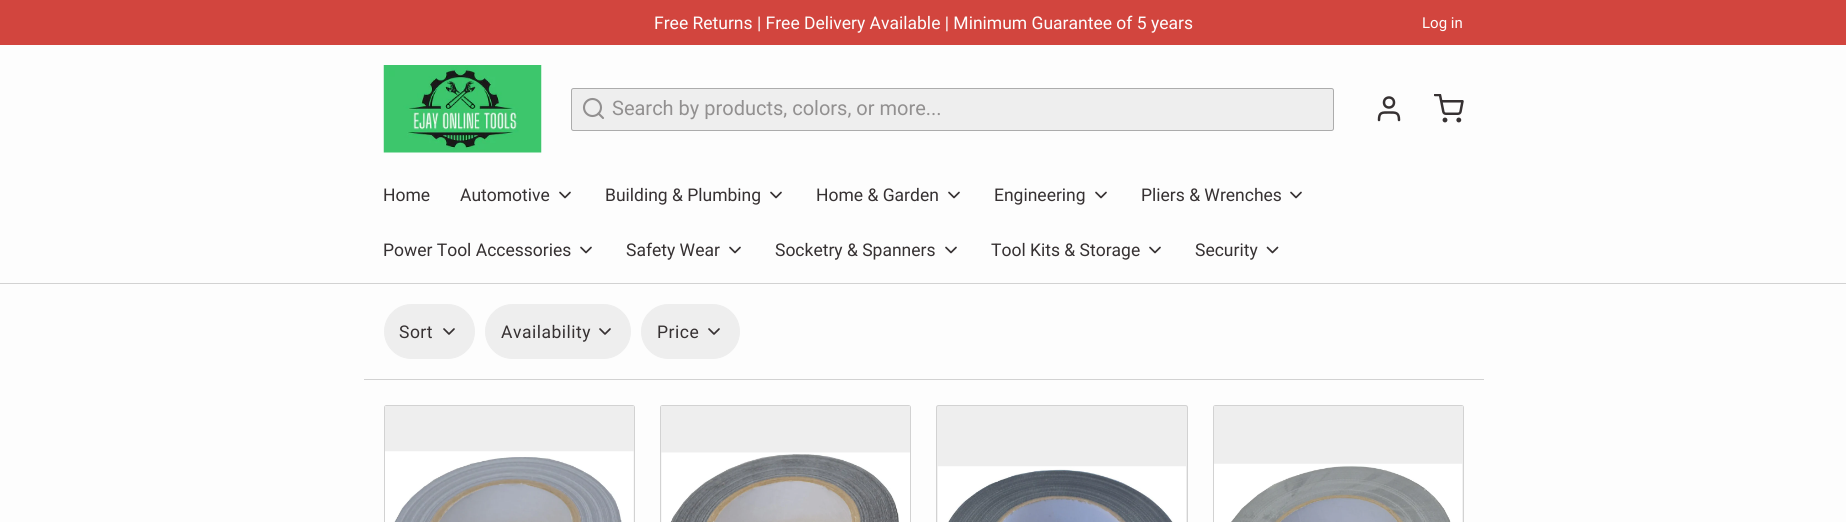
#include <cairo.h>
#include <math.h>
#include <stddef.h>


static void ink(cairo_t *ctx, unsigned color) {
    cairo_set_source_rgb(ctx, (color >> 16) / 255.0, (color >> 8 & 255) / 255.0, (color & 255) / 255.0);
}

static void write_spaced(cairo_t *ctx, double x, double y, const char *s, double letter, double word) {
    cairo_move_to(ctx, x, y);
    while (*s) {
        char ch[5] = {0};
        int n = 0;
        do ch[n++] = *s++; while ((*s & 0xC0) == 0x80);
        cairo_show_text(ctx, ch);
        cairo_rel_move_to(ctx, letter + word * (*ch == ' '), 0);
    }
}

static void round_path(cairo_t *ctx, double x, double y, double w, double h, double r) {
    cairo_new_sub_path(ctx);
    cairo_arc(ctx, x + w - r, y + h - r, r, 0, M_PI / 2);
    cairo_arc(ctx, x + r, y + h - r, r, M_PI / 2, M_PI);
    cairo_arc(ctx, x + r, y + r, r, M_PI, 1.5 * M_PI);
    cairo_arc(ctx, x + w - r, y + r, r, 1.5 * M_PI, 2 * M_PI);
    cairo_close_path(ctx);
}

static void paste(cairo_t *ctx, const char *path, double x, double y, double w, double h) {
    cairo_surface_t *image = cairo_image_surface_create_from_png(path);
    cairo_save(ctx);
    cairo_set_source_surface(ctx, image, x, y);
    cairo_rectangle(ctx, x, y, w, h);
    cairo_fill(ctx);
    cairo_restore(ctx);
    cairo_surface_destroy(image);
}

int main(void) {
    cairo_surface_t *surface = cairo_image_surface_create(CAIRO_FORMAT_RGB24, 1846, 522);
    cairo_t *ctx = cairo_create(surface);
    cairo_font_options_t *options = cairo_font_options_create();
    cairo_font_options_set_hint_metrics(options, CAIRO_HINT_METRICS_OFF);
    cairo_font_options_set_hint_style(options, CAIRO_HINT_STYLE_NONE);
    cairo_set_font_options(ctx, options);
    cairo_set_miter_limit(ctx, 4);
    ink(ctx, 0xFDFDFD);
    cairo_paint(ctx);
    ink(ctx, 0xD2453E);
    cairo_rectangle(ctx, 0, 0, 1846, 45);
    cairo_fill(ctx);
    cairo_select_font_face(ctx, "Roboto", CAIRO_FONT_SLANT_NORMAL, CAIRO_FONT_WEIGHT_NORMAL);
    cairo_set_font_size(ctx, 17.5);
    ink(ctx, 0xFDFDFD);
    cairo_move_to(ctx, 654, 29);
    cairo_show_text(ctx, "Free Returns | Free Delivery Available | Minimum Guarantee of 5 years");
    cairo_set_font_size(ctx, 15);
    cairo_move_to(ctx, 1422, 28);
    cairo_show_text(ctx, "Log in");
    ink(ctx, 0xD2D2D2);
    cairo_rectangle(ctx, 0, 283, 1846, 1);
    cairo_fill(ctx);
    paste(ctx, "media/1.png", 383, 65, 159, 88);
    ink(ctx, 0xEEEEEE);
    round_path(ctx, 571.5, 88.5, 762, 42, 2);
    cairo_fill_preserve(ctx);
    ink(ctx, 0xACACAC);
    cairo_set_line_width(ctx, 1);
    cairo_stroke(ctx);
    cairo_arc(ctx, 592.5, 107.5, 8.5, 0, 2 * M_PI);
    ink(ctx, 0x929090);
    cairo_set_line_width(ctx, 2.1);
    cairo_stroke(ctx);
    cairo_new_path(ctx);
    cairo_move_to(ctx, 603, 118);
    cairo_line_to(ctx, 598.5, 113.5);
    cairo_set_line_cap(ctx, CAIRO_LINE_CAP_ROUND);
    cairo_set_line_join(ctx, CAIRO_LINE_JOIN_ROUND);
    cairo_stroke(ctx);
    cairo_set_font_size(ctx, 20);
    cairo_move_to(ctx, 612, 115);
    cairo_show_text(ctx, "Search by products, colors, or more...");
    cairo_new_path(ctx);
    cairo_move_to(ctx, 1399, 120);
    cairo_curve_to(ctx, 1399, 112, 1395.5, 112.5, 1389, 112.5);
    cairo_curve_to(ctx, 1382, 112.5, 1379, 112, 1379, 120);
    ink(ctx, 0x363132);
    cairo_set_line_width(ctx, 2.5);
    cairo_stroke(ctx);
    cairo_arc(ctx, 1389, 102.5, 5, 0, 2 * M_PI);
    cairo_set_line_cap(ctx, CAIRO_LINE_CAP_BUTT);
    cairo_set_line_join(ctx, CAIRO_LINE_JOIN_MITER);
    cairo_stroke(ctx);
    paste(ctx, "media/2.png", 1434, 94, 30, 29);
    cairo_set_font_size(ctx, 17.5);
    cairo_move_to(ctx, 383, 201);
    cairo_show_text(ctx, "Home");
    cairo_move_to(ctx, 460, 201);
    cairo_show_text(ctx, "Automotive");
    cairo_new_path(ctx);
    cairo_move_to(ctx, 560, 192.5);
    cairo_line_to(ctx, 565, 197.5);
    cairo_line_to(ctx, 570, 192.5);
    cairo_set_line_width(ctx, 1.7);
    cairo_set_line_cap(ctx, CAIRO_LINE_CAP_ROUND);
    cairo_set_line_join(ctx, CAIRO_LINE_JOIN_ROUND);
    cairo_stroke(ctx);
    cairo_move_to(ctx, 605, 201);
    cairo_show_text(ctx, "Building & Plumbing");
    cairo_new_path(ctx);
    cairo_move_to(ctx, 771, 192.5);
    cairo_line_to(ctx, 776, 197.5);
    cairo_line_to(ctx, 781, 192.5);
    cairo_stroke(ctx);
    cairo_move_to(ctx, 816, 201);
    cairo_show_text(ctx, "Home & Garden");
    cairo_new_path(ctx);
    cairo_move_to(ctx, 949, 192.5);
    cairo_line_to(ctx, 954, 197.5);
    cairo_line_to(ctx, 959, 192.5);
    cairo_stroke(ctx);
    cairo_move_to(ctx, 994, 201);
    cairo_show_text(ctx, "Engineering");
    cairo_new_path(ctx);
    cairo_move_to(ctx, 1096, 192.5);
    cairo_line_to(ctx, 1101, 197.5);
    cairo_line_to(ctx, 1106, 192.5);
    cairo_stroke(ctx);
    cairo_move_to(ctx, 1141, 201);
    cairo_show_text(ctx, "Pliers & Wrenches");
    cairo_new_path(ctx);
    cairo_move_to(ctx, 1291, 192.5);
    cairo_line_to(ctx, 1296, 197.5);
    cairo_line_to(ctx, 1301, 192.5);
    cairo_stroke(ctx);
    cairo_move_to(ctx, 383, 256);
    cairo_show_text(ctx, "Power Tool Accessories");
    cairo_new_path(ctx);
    cairo_move_to(ctx, 581, 247.5);
    cairo_line_to(ctx, 586, 252.5);
    cairo_line_to(ctx, 591, 247.5);
    cairo_stroke(ctx);
    cairo_move_to(ctx, 626, 256);
    cairo_show_text(ctx, "Safety Wear");
    cairo_new_path(ctx);
    cairo_move_to(ctx, 730, 247.5);
    cairo_line_to(ctx, 735, 252.5);
    cairo_line_to(ctx, 740, 247.5);
    cairo_stroke(ctx);
    cairo_move_to(ctx, 775, 256);
    cairo_show_text(ctx, "Socketry & Spanners");
    cairo_new_path(ctx);
    cairo_move_to(ctx, 946, 247.5);
    cairo_line_to(ctx, 951, 252.5);
    cairo_line_to(ctx, 956, 247.5);
    cairo_stroke(ctx);
    cairo_move_to(ctx, 991, 256);
    cairo_show_text(ctx, "Tool Kits & Storage");
    cairo_new_path(ctx);
    cairo_move_to(ctx, 1150, 247.5);
    cairo_line_to(ctx, 1155, 252.5);
    cairo_line_to(ctx, 1160, 247.5);
    cairo_stroke(ctx);
    cairo_move_to(ctx, 1195, 256);
    cairo_show_text(ctx, "Security");
    cairo_new_path(ctx);
    cairo_move_to(ctx, 1267.5, 247.5);
    cairo_line_to(ctx, 1272.5, 252.5);
    cairo_line_to(ctx, 1277.5, 247.5);
    cairo_stroke(ctx);
    ink(ctx, 0xD2D2D2);
    cairo_rectangle(ctx, 364, 379, 1120, 1);
    cairo_fill(ctx);
    ink(ctx, 0xEEEEEE);
    round_path(ctx, 384.5, 304.5, 90, 54, 27);
    cairo_fill_preserve(ctx);
    cairo_set_line_width(ctx, 1);
    cairo_set_line_cap(ctx, CAIRO_LINE_CAP_BUTT);
    cairo_set_line_join(ctx, CAIRO_LINE_JOIN_MITER);
    cairo_stroke(ctx);
    ink(ctx, 0x363132);
    write_spaced(ctx, 399, 338, "Sort", 0.5, 0);
    cairo_new_path(ctx);
    cairo_move_to(ctx, 444, 329);
    cairo_line_to(ctx, 449, 334);
    cairo_line_to(ctx, 454, 329);
    cairo_set_line_width(ctx, 1.7);
    cairo_set_line_cap(ctx, CAIRO_LINE_CAP_ROUND);
    cairo_set_line_join(ctx, CAIRO_LINE_JOIN_ROUND);
    cairo_stroke(ctx);
    ink(ctx, 0xEEEEEE);
    round_path(ctx, 485.5, 304.5, 145, 54, 27);
    cairo_fill_preserve(ctx);
    cairo_set_line_width(ctx, 1);
    cairo_set_line_cap(ctx, CAIRO_LINE_CAP_BUTT);
    cairo_set_line_join(ctx, CAIRO_LINE_JOIN_MITER);
    cairo_stroke(ctx);
    ink(ctx, 0x363132);
    write_spaced(ctx, 501, 338, "Availability", 0.5, 0);
    cairo_new_path(ctx);
    cairo_move_to(ctx, 600, 329);
    cairo_line_to(ctx, 605, 334);
    cairo_line_to(ctx, 610, 329);
    cairo_set_line_width(ctx, 1.7);
    cairo_set_line_cap(ctx, CAIRO_LINE_CAP_ROUND);
    cairo_set_line_join(ctx, CAIRO_LINE_JOIN_ROUND);
    cairo_stroke(ctx);
    ink(ctx, 0xEEEEEE);
    round_path(ctx, 641.5, 304.5, 98, 54, 27);
    cairo_fill_preserve(ctx);
    cairo_set_line_width(ctx, 1);
    cairo_set_line_cap(ctx, CAIRO_LINE_CAP_BUTT);
    cairo_set_line_join(ctx, CAIRO_LINE_JOIN_MITER);
    cairo_stroke(ctx);
    ink(ctx, 0x363132);
    write_spaced(ctx, 657, 338, "Price", 0.5, 0);
    cairo_new_path(ctx);
    cairo_move_to(ctx, 709, 329);
    cairo_line_to(ctx, 714, 334);
    cairo_line_to(ctx, 719, 329);
    cairo_set_line_width(ctx, 1.7);
    cairo_set_line_cap(ctx, CAIRO_LINE_CAP_ROUND);
    cairo_set_line_join(ctx, CAIRO_LINE_JOIN_ROUND);
    cairo_stroke(ctx);
    round_path(ctx, 384.5, 405.5, 250, 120, 2);
    ink(ctx, 0xD2D2D2);
    cairo_set_line_width(ctx, 1);
    cairo_set_line_cap(ctx, CAIRO_LINE_CAP_BUTT);
    cairo_set_line_join(ctx, CAIRO_LINE_JOIN_MITER);
    cairo_stroke(ctx);
    ink(ctx, 0xEEEEEE);
    round_path(ctx, 385, 406, 249, 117, 1);
    cairo_fill(ctx);
    paste(ctx, "media/3.png", 385, 451, 249, 71);
    round_path(ctx, 660.5, 405.5, 250, 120, 2);
    ink(ctx, 0xD2D2D2);
    cairo_stroke(ctx);
    ink(ctx, 0xEEEEEE);
    round_path(ctx, 661, 406, 249, 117, 1);
    cairo_fill(ctx);
    paste(ctx, "media/4.png", 661, 452, 249, 70);
    round_path(ctx, 936.5, 405.5, 251, 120, 2);
    cairo_fill_preserve(ctx);
    ink(ctx, 0xD2D2D2);
    cairo_stroke(ctx);
    paste(ctx, "media/5.png", 937, 466, 249, 56);
    round_path(ctx, 1213.5, 405.5, 250, 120, 2);
    cairo_stroke(ctx);
    ink(ctx, 0xEEEEEE);
    round_path(ctx, 1214, 406, 249, 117, 1);
    cairo_fill(ctx);
    paste(ctx, "media/6.png", 1214, 463, 249, 59);
    cairo_surface_write_to_png(surface, "image.png");
    cairo_font_options_destroy(options);
    cairo_destroy(ctx);
    cairo_surface_destroy(surface);
    return 0;
}
